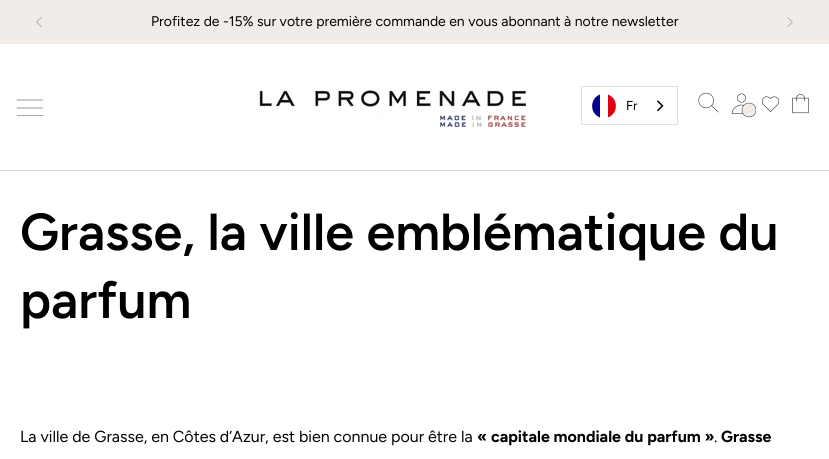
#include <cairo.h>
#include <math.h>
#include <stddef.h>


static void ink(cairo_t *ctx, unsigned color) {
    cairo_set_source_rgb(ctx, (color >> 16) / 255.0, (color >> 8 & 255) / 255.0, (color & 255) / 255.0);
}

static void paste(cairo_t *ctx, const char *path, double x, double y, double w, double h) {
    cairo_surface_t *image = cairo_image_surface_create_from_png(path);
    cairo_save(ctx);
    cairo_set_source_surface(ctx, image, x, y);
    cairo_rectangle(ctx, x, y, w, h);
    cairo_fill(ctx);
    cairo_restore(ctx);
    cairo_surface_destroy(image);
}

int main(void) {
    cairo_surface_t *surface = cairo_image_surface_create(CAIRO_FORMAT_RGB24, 829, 459);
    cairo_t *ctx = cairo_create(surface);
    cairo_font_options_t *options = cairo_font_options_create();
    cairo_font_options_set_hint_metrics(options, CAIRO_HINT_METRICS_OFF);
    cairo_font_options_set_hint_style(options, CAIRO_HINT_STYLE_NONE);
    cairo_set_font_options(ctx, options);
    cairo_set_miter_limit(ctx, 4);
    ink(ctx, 0xFFFFFF);
    cairo_paint(ctx);
    ink(ctx, 0xF2ECE9);
    cairo_rectangle(ctx, 0, 0, 829, 44);
    cairo_fill(ctx);
    paste(ctx, "media/1.png", 36, 17, 6, 10);
    cairo_select_font_face(ctx, "Figtree", CAIRO_FONT_SLANT_NORMAL, CAIRO_FONT_WEIGHT_NORMAL);
    cairo_set_font_size(ctx, 14);
    ink(ctx, 0x000000);
    cairo_move_to(ctx, 151, 26);
    cairo_show_text(ctx, "Profitez de -15% sur votre première commande en vous abonnant à notre newsletter");
    paste(ctx, "media/2.png", 787, 17, 6, 10);
    ink(ctx, 0xD9D9D9);
    cairo_rectangle(ctx, 0, 170, 829, 1);
    cairo_fill(ctx);
    cairo_new_path(ctx);
    cairo_move_to(ctx, 17, 100);
    cairo_line_to(ctx, 43, 100);
    cairo_move_to(ctx, 17, 108);
    cairo_line_to(ctx, 43, 108);
    cairo_move_to(ctx, 17, 115.5);
    cairo_line_to(ctx, 43, 115.5);
    ink(ctx, 0x000000);
    cairo_set_line_width(ctx, 0.4);
    cairo_set_line_cap(ctx, CAIRO_LINE_CAP_ROUND);
    cairo_stroke(ctx);
    paste(ctx, "media/3.png", 257, 87, 271, 43);
    cairo_rectangle(ctx, 581.5, 86.5, 96, 38);
    ink(ctx, 0xE0E0E0);
    cairo_set_line_width(ctx, 1);
    cairo_set_line_cap(ctx, CAIRO_LINE_CAP_BUTT);
    cairo_stroke(ctx);
    ink(ctx, 0x000091);
    cairo_new_path(ctx);
    cairo_move_to(ctx, 600, 117.5);
    cairo_curve_to(ctx, 589.5, 113.5, 589.5, 98.5, 600, 94.5);
    cairo_close_path(ctx);
    cairo_fill(ctx);
    ink(ctx, 0xE1000F);
    cairo_new_path(ctx);
    cairo_move_to(ctx, 608, 94.5);
    cairo_curve_to(ctx, 618.5, 98.5, 618.5, 113.5, 608, 117.5);
    cairo_close_path(ctx);
    cairo_fill(ctx);
    cairo_set_font_size(ctx, 13);
    ink(ctx, 0x000000);
    cairo_move_to(ctx, 626, 110);
    cairo_show_text(ctx, "Fr");
    paste(ctx, "media/4.png", 657, 100, 7, 12);
    paste(ctx, "media/5.png", 698, 92, 21, 21);
    paste(ctx, "media/6.png", 731, 93, 25, 25);
    paste(ctx, "media/7.png", 761, 96, 19, 16);
    paste(ctx, "media/8.png", 792, 94, 17, 20);
    cairo_select_font_face(ctx, "Figtree SemiBold", CAIRO_FONT_SLANT_NORMAL, CAIRO_FONT_WEIGHT_NORMAL);
    cairo_set_font_size(ctx, 52);
    cairo_move_to(ctx, 20, 250);
    cairo_show_text(ctx, "Grasse, la ville emblématique du");
    cairo_move_to(ctx, 20, 318);
    cairo_show_text(ctx, "parfum");
    cairo_select_font_face(ctx, "Figtree", CAIRO_FONT_SLANT_NORMAL, CAIRO_FONT_WEIGHT_NORMAL);
    cairo_set_font_size(ctx, 16);
    cairo_move_to(ctx, 20, 442);
    cairo_show_text(ctx, "La ville de Grasse, en Côtes d’Azur, est bien connue pour être la");
    cairo_select_font_face(ctx, "Figtree", CAIRO_FONT_SLANT_NORMAL, CAIRO_FONT_WEIGHT_BOLD);
    cairo_move_to(ctx, 477, 442);
    cairo_show_text(ctx, "« capitale mondiale du parfum »");
    cairo_select_font_face(ctx, "Figtree", CAIRO_FONT_SLANT_NORMAL, CAIRO_FONT_WEIGHT_NORMAL);
    cairo_move_to(ctx, 714, 442);
    cairo_show_text(ctx, ".");
    cairo_select_font_face(ctx, "Figtree", CAIRO_FONT_SLANT_NORMAL, CAIRO_FONT_WEIGHT_BOLD);
    cairo_move_to(ctx, 721, 442);
    cairo_show_text(ctx, "Grasse");
    cairo_surface_write_to_png(surface, "image.png");
    cairo_font_options_destroy(options);
    cairo_destroy(ctx);
    cairo_surface_destroy(surface);
    return 0;
}
